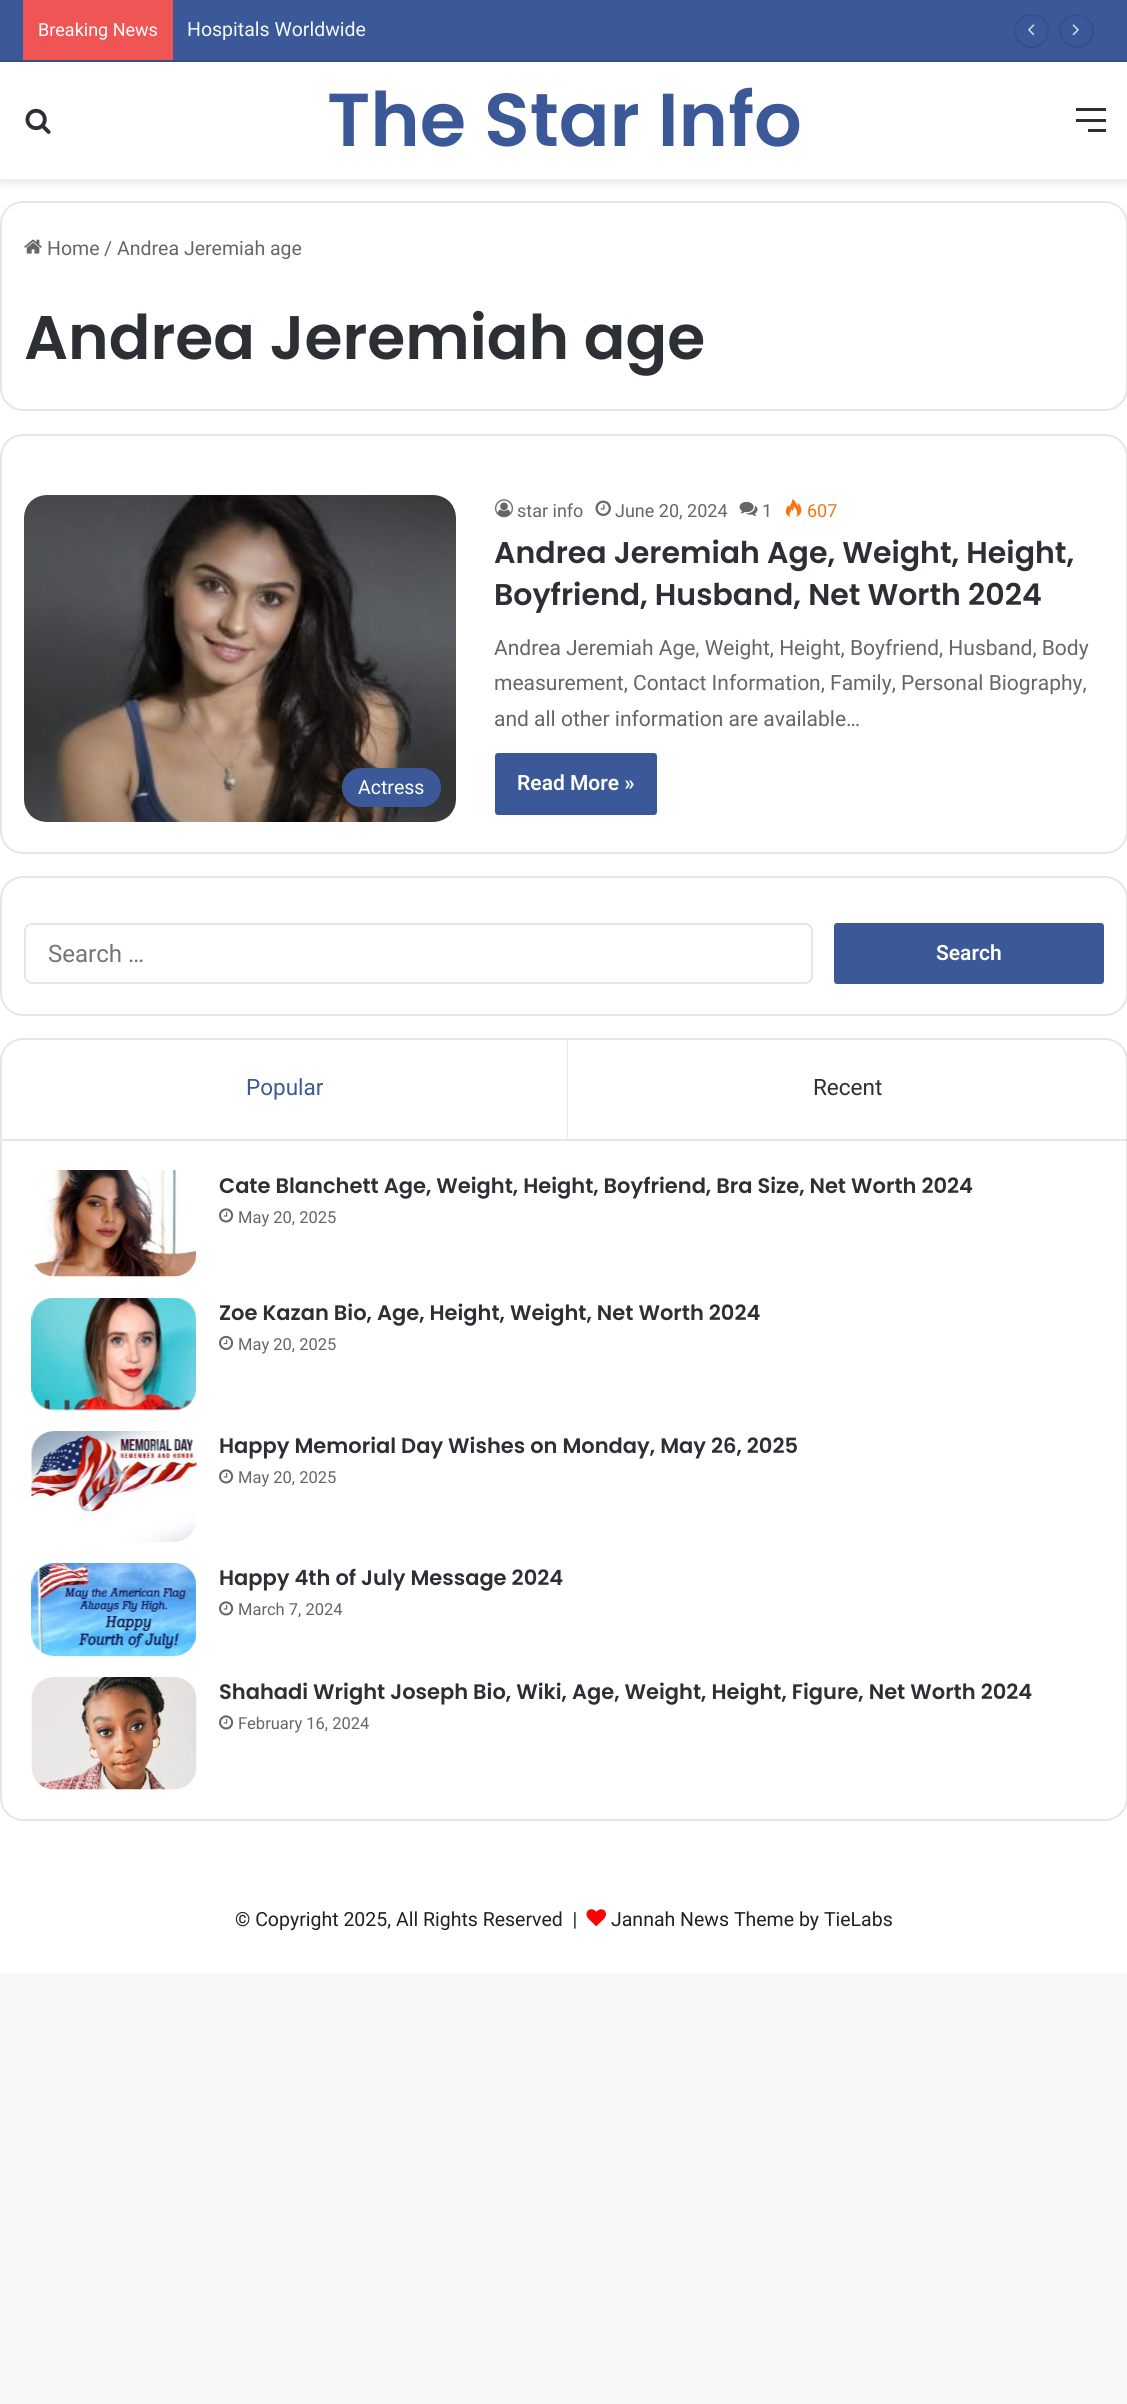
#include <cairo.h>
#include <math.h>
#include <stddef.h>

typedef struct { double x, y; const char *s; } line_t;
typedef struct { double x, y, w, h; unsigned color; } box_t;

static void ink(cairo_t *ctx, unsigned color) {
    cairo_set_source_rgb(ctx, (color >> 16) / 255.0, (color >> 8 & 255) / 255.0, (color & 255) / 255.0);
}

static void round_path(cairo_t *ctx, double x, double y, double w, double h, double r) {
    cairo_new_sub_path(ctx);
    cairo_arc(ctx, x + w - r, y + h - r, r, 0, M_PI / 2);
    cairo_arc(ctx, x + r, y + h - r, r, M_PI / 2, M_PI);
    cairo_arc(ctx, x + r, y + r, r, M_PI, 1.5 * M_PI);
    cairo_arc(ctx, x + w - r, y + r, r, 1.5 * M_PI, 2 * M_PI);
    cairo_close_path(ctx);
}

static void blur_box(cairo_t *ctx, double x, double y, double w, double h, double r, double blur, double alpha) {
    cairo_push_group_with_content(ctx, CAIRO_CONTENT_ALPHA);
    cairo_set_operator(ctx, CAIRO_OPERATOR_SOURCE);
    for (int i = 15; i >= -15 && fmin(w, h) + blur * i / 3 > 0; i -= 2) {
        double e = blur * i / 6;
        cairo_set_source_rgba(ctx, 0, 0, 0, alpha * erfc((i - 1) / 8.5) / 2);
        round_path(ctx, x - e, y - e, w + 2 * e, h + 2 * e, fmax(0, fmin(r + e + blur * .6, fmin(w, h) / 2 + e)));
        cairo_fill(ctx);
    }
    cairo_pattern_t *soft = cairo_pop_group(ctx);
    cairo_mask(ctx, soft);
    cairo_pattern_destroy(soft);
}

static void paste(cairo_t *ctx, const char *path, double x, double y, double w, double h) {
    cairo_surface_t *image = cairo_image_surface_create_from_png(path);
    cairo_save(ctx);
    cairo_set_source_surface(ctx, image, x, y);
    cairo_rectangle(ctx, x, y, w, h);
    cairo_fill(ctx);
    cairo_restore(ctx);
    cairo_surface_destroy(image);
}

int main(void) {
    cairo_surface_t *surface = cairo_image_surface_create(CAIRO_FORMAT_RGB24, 1127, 2404);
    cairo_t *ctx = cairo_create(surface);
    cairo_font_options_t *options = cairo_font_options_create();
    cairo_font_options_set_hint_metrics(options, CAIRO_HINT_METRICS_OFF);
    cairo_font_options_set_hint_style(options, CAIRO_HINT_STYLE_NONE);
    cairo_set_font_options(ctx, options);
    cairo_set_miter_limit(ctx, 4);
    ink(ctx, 0xF7F7F7);
    cairo_paint(ctx);
    ink(ctx, 0xFFFFFF);
    cairo_rectangle(ctx, 0, 179, 1127, 1795);
    cairo_fill(ctx);
    ink(ctx, 0x000000);
    blur_box(ctx, 0, 66, 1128, 117, 0, 5, 0.1);
    {
        static const box_t items[] = {
            {0, 0, 1127, 60, 0x3B5998},
            {0, 60, 1127, 2, 0x355089},
            {23, 0, 150, 60, 0xF05555},
        };
        for (size_t i = 0; i < sizeof items / sizeof *items; i++) {
            ink(ctx, items[i].color);
            cairo_rectangle(ctx, items[i].x, items[i].y, items[i].w, items[i].h);
            cairo_fill(ctx);
        }
    }
    cairo_select_font_face(ctx, "Roboto", CAIRO_FONT_SLANT_NORMAL, CAIRO_FONT_WEIGHT_NORMAL);
    cairo_set_font_size(ctx, 18);
    ink(ctx, 0xFFFFFF);
    cairo_move_to(ctx, 38, 36);
    cairo_show_text(ctx, "Breaking News");
    cairo_set_font_size(ctx, 19.5);
    ink(ctx, 0xF6F7F9);
    cairo_move_to(ctx, 187, 36);
    cairo_show_text(ctx, "Hospitals Worldwide");
    round_path(ctx, 1015, 15, 33, 32, 16);
    ink(ctx, 0x355089);
    cairo_stroke(ctx);
    paste(ctx, "media/1.png", 1028, 24, 7, 12);
    round_path(ctx, 1060, 15, 33, 32, 16);
    cairo_stroke(ctx);
    paste(ctx, "media/2.png", 1072, 24, 7, 12);
    ink(ctx, 0xFFFFFF);
    cairo_rectangle(ctx, 0, 62, 1127, 117);
    cairo_fill(ctx);
    paste(ctx, "media/3.png", 25, 108, 26, 26);
    cairo_select_font_face(ctx, "Poppins SemiBold", CAIRO_FONT_SLANT_NORMAL, CAIRO_FONT_WEIGHT_NORMAL);
    cairo_set_font_size(ctx, 75);
    ink(ctx, 0x3B5998);
    cairo_move_to(ctx, 327, 146);
    cairo_show_text(ctx, "The Star Info");
    {
        static const box_t items[] = {
            {1076, 119, 30, 3, 0x2C2F34},
            {1076, 108, 30, 3, 0x2C2F34},
            {1088, 129, 18, 3, 0x2C2F34},
        };
        for (size_t i = 0; i < sizeof items / sizeof *items; i++) {
            ink(ctx, items[i].color);
            cairo_rectangle(ctx, items[i].x, items[i].y, items[i].w, items[i].h);
            cairo_fill(ctx);
        }
    }
    round_path(ctx, 1, 202, 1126, 208, 22);
    ink(ctx, 0xE6E6E6);
    cairo_stroke(ctx);
    paste(ctx, "media/4.png", 24, 239, 18, 15);
    cairo_select_font_face(ctx, "Roboto", CAIRO_FONT_SLANT_NORMAL, CAIRO_FONT_WEIGHT_NORMAL);
    cairo_set_font_size(ctx, 19.5);
    ink(ctx, 0x666666);
    {
        static const line_t items[] = {
            {47, 255, "Home"},
            {104, 255, "/"},
            {117, 255, "Andrea Jeremiah age"},
        };
        for (size_t i = 0; i < sizeof items / sizeof *items; i++) {
            cairo_move_to(ctx, items[i].x, items[i].y);
            cairo_show_text(ctx, items[i].s);
        }
    }
    cairo_select_font_face(ctx, "Poppins SemiBold", CAIRO_FONT_SLANT_NORMAL, CAIRO_FONT_WEIGHT_NORMAL);
    cairo_set_font_size(ctx, 61.5);
    ink(ctx, 0x2C2F34);
    cairo_move_to(ctx, 24, 359);
    cairo_show_text(ctx, "Andrea Jeremiah age");
    round_path(ctx, 1, 435, 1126, 418, 22);
    ink(ctx, 0xE6E6E6);
    cairo_stroke(ctx);
    paste(ctx, "media/5.png", 24, 495, 432, 327);
    ink(ctx, 0x3B5998);
    round_path(ctx, 342, 768, 99, 39, 19.5);
    cairo_fill(ctx);
    cairo_select_font_face(ctx, "Roboto", CAIRO_FONT_SLANT_NORMAL, CAIRO_FONT_WEIGHT_NORMAL);
    cairo_set_font_size(ctx, 19.5);
    ink(ctx, 0xFFFFFF);
    cairo_move_to(ctx, 358, 794);
    cairo_show_text(ctx, "Actress");
    paste(ctx, "media/6.png", 495, 499, 18, 19);
    cairo_set_font_size(ctx, 18);
    ink(ctx, 0x666666);
    cairo_move_to(ctx, 517, 517);
    cairo_show_text(ctx, "star info");
    paste(ctx, "media/7.png", 595, 500, 16, 16);
    cairo_move_to(ctx, 615, 517);
    cairo_show_text(ctx, "June 20, 2024");
    paste(ctx, "media/8.png", 739, 501, 19, 15);
    cairo_move_to(ctx, 762, 517);
    cairo_show_text(ctx, "1");
    paste(ctx, "media/9.png", 785, 499, 17, 18);
    ink(ctx, 0xF47512);
    cairo_move_to(ctx, 807, 517);
    cairo_show_text(ctx, "607");
    cairo_select_font_face(ctx, "Poppins SemiBold", CAIRO_FONT_SLANT_NORMAL, CAIRO_FONT_WEIGHT_NORMAL);
    cairo_set_font_size(ctx, 30);
    ink(ctx, 0x2C2F34);
    cairo_move_to(ctx, 494, 563);
    cairo_show_text(ctx, "Andrea Jeremiah Age, Weight, Height,");
    cairo_move_to(ctx, 494, 605);
    cairo_show_text(ctx, "Boyfriend, Husband, Net Worth 2024");
    cairo_select_font_face(ctx, "Roboto", CAIRO_FONT_SLANT_NORMAL, CAIRO_FONT_WEIGHT_NORMAL);
    cairo_set_font_size(ctx, 21);
    ink(ctx, 0x666666);
    {
        static const line_t items[] = {
            {494, 655, "Andrea Jeremiah Age, Weight, Height, Boyfriend, Husband, Body"},
            {494, 690, "measurement, Contact Information, Family, Personal Biography,"},
            {494, 726, "and all other information are available…"},
        };
        for (size_t i = 0; i < sizeof items / sizeof *items; i++) {
            cairo_move_to(ctx, items[i].x, items[i].y);
            cairo_show_text(ctx, items[i].s);
        }
    }
    ink(ctx, 0x3B5998);
    round_path(ctx, 495, 753, 162, 62, 3);
    cairo_fill(ctx);
    cairo_select_font_face(ctx, "Roboto SemiBold", CAIRO_FONT_SLANT_NORMAL, CAIRO_FONT_WEIGHT_NORMAL);
    ink(ctx, 0xFFFFFF);
    cairo_move_to(ctx, 517, 790);
    cairo_show_text(ctx, "Read More »");
    round_path(ctx, 1, 877, 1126, 138, 22);
    ink(ctx, 0xE6E6E6);
    cairo_stroke(ctx);
    round_path(ctx, 25, 924, 787, 59, 7);
    cairo_stroke(ctx);
    cairo_select_font_face(ctx, "Roboto", CAIRO_FONT_SLANT_NORMAL, CAIRO_FONT_WEIGHT_NORMAL);
    cairo_set_font_size(ctx, 24);
    ink(ctx, 0x757575);
    cairo_move_to(ctx, 48, 962);
    cairo_show_text(ctx, "Search …");
    ink(ctx, 0x3B5998);
    round_path(ctx, 834, 923, 270, 61, 3);
    cairo_fill(ctx);
    cairo_select_font_face(ctx, "Roboto SemiBold", CAIRO_FONT_SLANT_NORMAL, CAIRO_FONT_WEIGHT_NORMAL);
    cairo_set_font_size(ctx, 21);
    ink(ctx, 0xFFFFFF);
    cairo_move_to(ctx, 936, 960);
    cairo_show_text(ctx, "Search");
    round_path(ctx, 1, 1039, 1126, 781, 22);
    ink(ctx, 0xE6E6E6);
    cairo_stroke(ctx);
    cairo_set_source_rgba(ctx, 0, 0, 0, 0.1);
    cairo_rectangle(ctx, 2, 1139, 1125, 2);
    cairo_fill(ctx);
    ink(ctx, 0xE6E6E6);
    cairo_new_path(ctx);
    cairo_move_to(ctx, 568, 1138);
    cairo_line_to(ctx, 567, 1137);
    cairo_line_to(ctx, 567, 1040);
    cairo_line_to(ctx, 568, 1040);
    cairo_close_path(ctx);
    cairo_fill(ctx);
    cairo_select_font_face(ctx, "Roboto", CAIRO_FONT_SLANT_NORMAL, CAIRO_FONT_WEIGHT_NORMAL);
    cairo_set_font_size(ctx, 22.5);
    ink(ctx, 0x3B5998);
    cairo_move_to(ctx, 246, 1095);
    cairo_show_text(ctx, "Popular");
    ink(ctx, 0x2C2F34);
    cairo_move_to(ctx, 813, 1095);
    cairo_show_text(ctx, "Recent");
    paste(ctx, "media/10.png", 34, 1170, 162, 107);
    cairo_select_font_face(ctx, "Poppins SemiBold", CAIRO_FONT_SLANT_NORMAL, CAIRO_FONT_WEIGHT_NORMAL);
    cairo_set_font_size(ctx, 21);
    cairo_move_to(ctx, 219, 1193);
    cairo_show_text(ctx, "Cate Blanchett Age, Weight, Height, Boyfriend, Bra Size, Net Worth 2024");
    paste(ctx, "media/11.png", 219, 1208, 15, 15);
    cairo_select_font_face(ctx, "Roboto", CAIRO_FONT_SLANT_NORMAL, CAIRO_FONT_WEIGHT_NORMAL);
    cairo_set_font_size(ctx, 16.5);
    ink(ctx, 0x666666);
    cairo_move_to(ctx, 238, 1223);
    cairo_show_text(ctx, "May 20, 2025");
    paste(ctx, "media/12.png", 31, 1298, 165, 113);
    cairo_select_font_face(ctx, "Poppins SemiBold", CAIRO_FONT_SLANT_NORMAL, CAIRO_FONT_WEIGHT_NORMAL);
    cairo_set_font_size(ctx, 21);
    ink(ctx, 0x2C2F34);
    cairo_move_to(ctx, 219, 1320);
    cairo_show_text(ctx, "Zoe Kazan Bio, Age, Height, Weight, Net Worth 2024");
    paste(ctx, "media/13.png", 219, 1335, 15, 15);
    cairo_select_font_face(ctx, "Roboto", CAIRO_FONT_SLANT_NORMAL, CAIRO_FONT_WEIGHT_NORMAL);
    cairo_set_font_size(ctx, 16.5);
    ink(ctx, 0x666666);
    cairo_move_to(ctx, 238, 1350);
    cairo_show_text(ctx, "May 20, 2025");
    paste(ctx, "media/14.png", 31, 1431, 166, 111);
    cairo_select_font_face(ctx, "Poppins SemiBold", CAIRO_FONT_SLANT_NORMAL, CAIRO_FONT_WEIGHT_NORMAL);
    cairo_set_font_size(ctx, 21);
    ink(ctx, 0x2C2F34);
    cairo_move_to(ctx, 219, 1453);
    cairo_show_text(ctx, "Happy Memorial Day Wishes on Monday, May 26, 2025");
    paste(ctx, "media/11.png", 219, 1469, 15, 15);
    cairo_select_font_face(ctx, "Roboto", CAIRO_FONT_SLANT_NORMAL, CAIRO_FONT_WEIGHT_NORMAL);
    cairo_set_font_size(ctx, 16.5);
    ink(ctx, 0x666666);
    cairo_move_to(ctx, 238, 1483);
    cairo_show_text(ctx, "May 20, 2025");
    paste(ctx, "media/15.png", 31, 1563, 165, 93);
    cairo_select_font_face(ctx, "Poppins SemiBold", CAIRO_FONT_SLANT_NORMAL, CAIRO_FONT_WEIGHT_NORMAL);
    cairo_set_font_size(ctx, 21);
    ink(ctx, 0x2C2F34);
    cairo_move_to(ctx, 219, 1585);
    cairo_show_text(ctx, "Happy 4th of July Message 2024");
    paste(ctx, "media/11.png", 219, 1601, 15, 15);
    cairo_select_font_face(ctx, "Roboto", CAIRO_FONT_SLANT_NORMAL, CAIRO_FONT_WEIGHT_NORMAL);
    cairo_set_font_size(ctx, 16.5);
    ink(ctx, 0x666666);
    cairo_move_to(ctx, 238, 1615);
    cairo_show_text(ctx, "March 7, 2024");
    paste(ctx, "media/16.png", 31, 1677, 166, 113);
    cairo_select_font_face(ctx, "Poppins SemiBold", CAIRO_FONT_SLANT_NORMAL, CAIRO_FONT_WEIGHT_NORMAL);
    cairo_set_font_size(ctx, 21);
    ink(ctx, 0x2C2F34);
    cairo_move_to(ctx, 219, 1699);
    cairo_show_text(ctx, "Shahadi Wright Joseph Bio, Wiki, Age, Weight, Height, Figure, Net Worth 2024");
    paste(ctx, "media/11.png", 219, 1715, 15, 15);
    cairo_select_font_face(ctx, "Roboto", CAIRO_FONT_SLANT_NORMAL, CAIRO_FONT_WEIGHT_NORMAL);
    cairo_set_font_size(ctx, 16.5);
    ink(ctx, 0x666666);
    cairo_move_to(ctx, 238, 1729);
    cairo_show_text(ctx, "February 16, 2024");
    cairo_set_font_size(ctx, 19.5);
    ink(ctx, 0x1D2129);
    cairo_move_to(ctx, 235, 1926);
    cairo_show_text(ctx, "© Copyright 2025, All Rights Reserved  |");
    paste(ctx, "media/17.png", 586, 1909, 20, 17);
    cairo_move_to(ctx, 611, 1926);
    cairo_show_text(ctx, "Jannah News Theme by TieLabs");
    cairo_surface_write_to_png(surface, "image.png");
    cairo_font_options_destroy(options);
    cairo_destroy(ctx);
    cairo_surface_destroy(surface);
    return 0;
}
